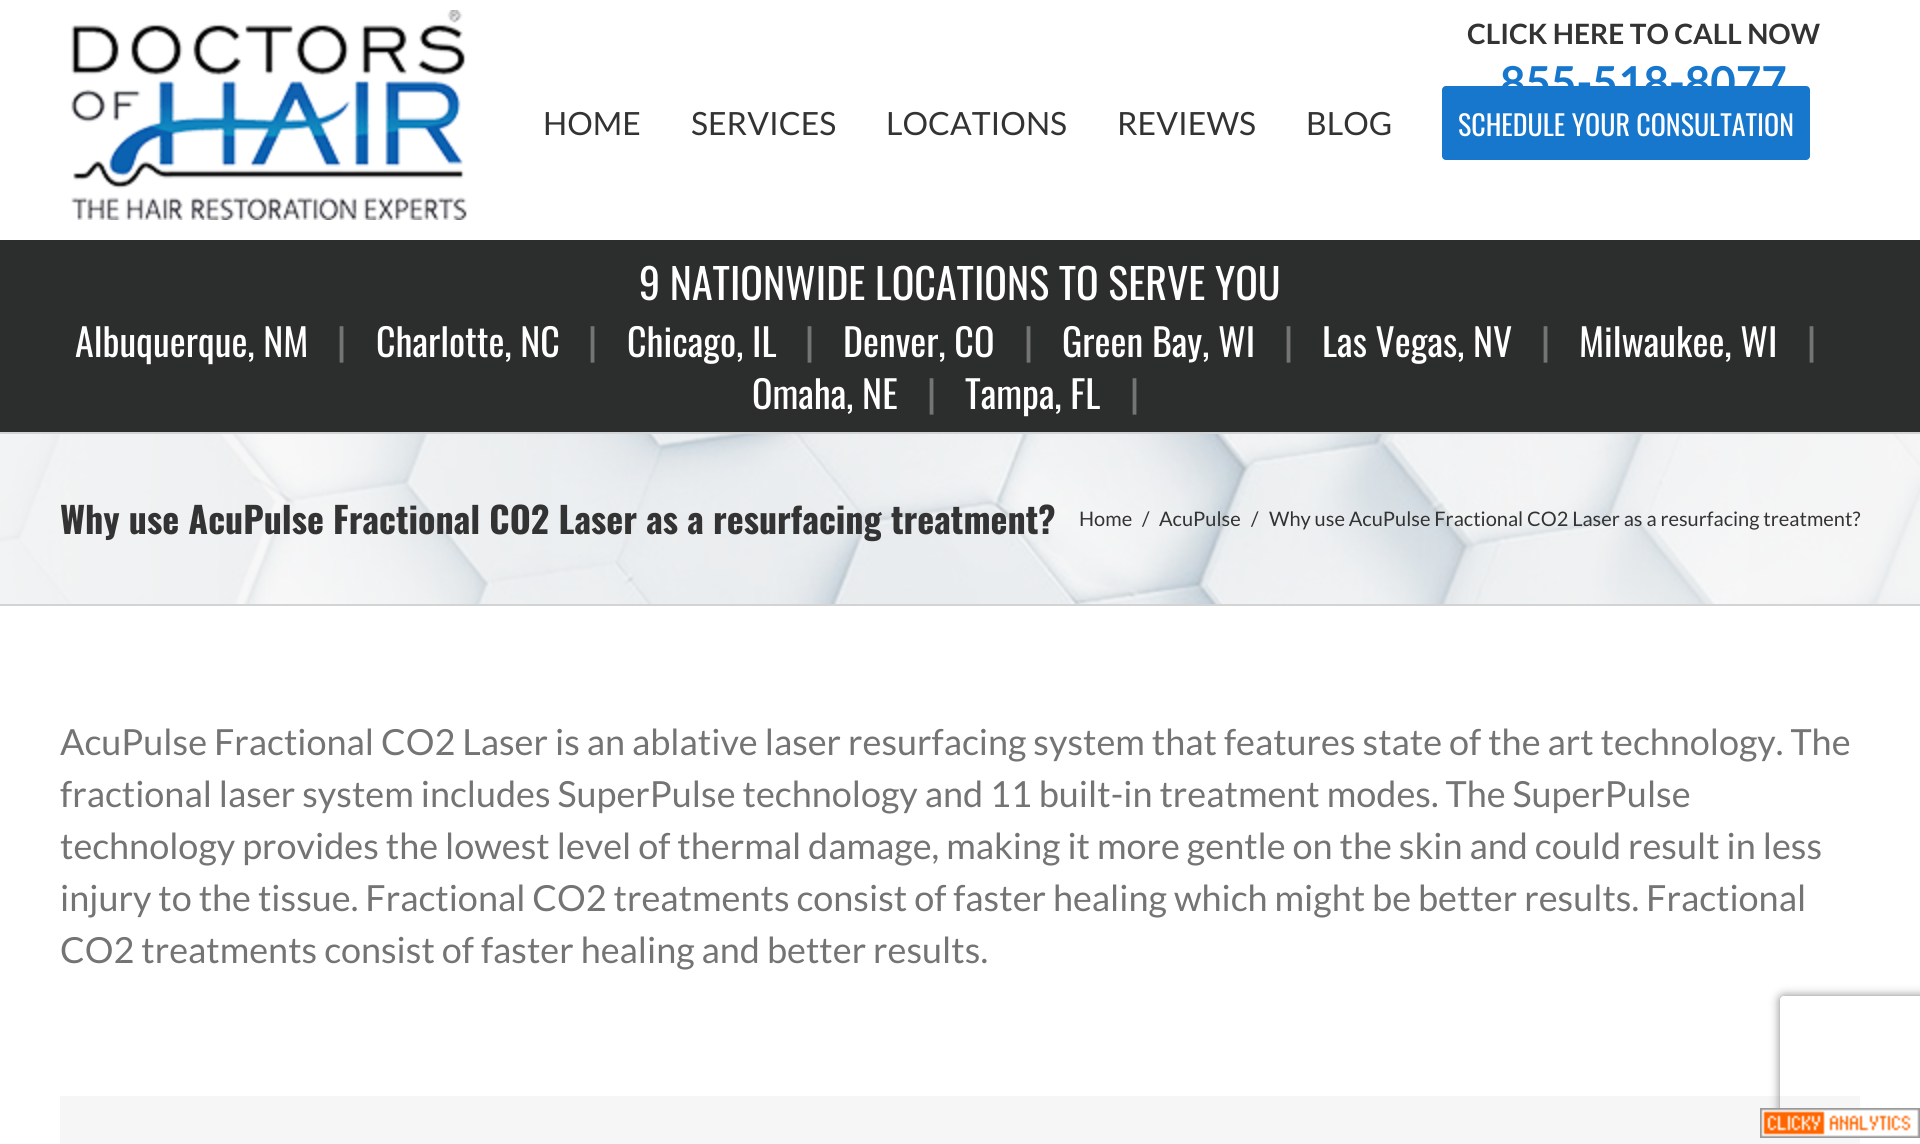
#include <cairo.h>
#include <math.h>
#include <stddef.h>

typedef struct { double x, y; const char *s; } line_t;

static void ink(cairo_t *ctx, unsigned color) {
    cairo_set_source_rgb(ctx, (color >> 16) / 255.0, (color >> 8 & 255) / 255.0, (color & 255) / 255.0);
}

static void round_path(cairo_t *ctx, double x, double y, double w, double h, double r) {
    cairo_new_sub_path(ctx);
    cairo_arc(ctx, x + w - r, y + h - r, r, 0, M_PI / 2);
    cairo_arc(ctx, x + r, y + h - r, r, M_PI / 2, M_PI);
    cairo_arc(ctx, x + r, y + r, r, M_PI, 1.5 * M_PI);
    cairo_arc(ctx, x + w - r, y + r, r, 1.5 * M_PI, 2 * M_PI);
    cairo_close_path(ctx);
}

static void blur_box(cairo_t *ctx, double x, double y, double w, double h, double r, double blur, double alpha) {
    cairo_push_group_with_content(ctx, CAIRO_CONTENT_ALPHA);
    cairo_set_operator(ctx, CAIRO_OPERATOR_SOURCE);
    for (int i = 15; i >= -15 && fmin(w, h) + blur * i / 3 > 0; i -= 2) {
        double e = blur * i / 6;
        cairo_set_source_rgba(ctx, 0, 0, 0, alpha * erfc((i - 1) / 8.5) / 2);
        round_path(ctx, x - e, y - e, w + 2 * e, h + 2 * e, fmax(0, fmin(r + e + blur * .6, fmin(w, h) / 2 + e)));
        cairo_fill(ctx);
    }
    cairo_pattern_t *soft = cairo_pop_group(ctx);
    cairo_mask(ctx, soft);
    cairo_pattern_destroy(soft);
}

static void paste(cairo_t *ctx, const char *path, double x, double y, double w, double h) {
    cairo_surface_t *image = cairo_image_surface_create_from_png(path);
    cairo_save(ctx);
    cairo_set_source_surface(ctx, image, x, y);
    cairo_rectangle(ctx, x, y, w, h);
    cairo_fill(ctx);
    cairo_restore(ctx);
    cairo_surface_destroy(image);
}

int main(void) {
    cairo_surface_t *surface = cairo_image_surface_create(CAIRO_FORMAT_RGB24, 1920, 1144);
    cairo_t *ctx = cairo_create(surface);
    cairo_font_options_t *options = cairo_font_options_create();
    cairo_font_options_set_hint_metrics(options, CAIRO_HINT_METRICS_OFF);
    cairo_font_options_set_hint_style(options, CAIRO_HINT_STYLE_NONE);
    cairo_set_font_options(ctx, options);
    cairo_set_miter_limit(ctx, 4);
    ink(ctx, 0xFFFFFF);
    cairo_paint(ctx);
    paste(ctx, "media/1.png", 71, 10, 396, 210);
    cairo_select_font_face(ctx, "Lato", CAIRO_FONT_SLANT_NORMAL, CAIRO_FONT_WEIGHT_BOLD);
    cairo_set_font_size(ctx, 28);
    ink(ctx, 0x333333);
    cairo_move_to(ctx, 1467, 44);
    cairo_show_text(ctx, "CLICK HERE TO CALL NOW");
    ink(ctx, 0x1777CD);
    round_path(ctx, 1442, 86, 368, 74, 4);
    cairo_fill(ctx);
    cairo_set_font_size(ctx, 44);
    cairo_move_to(ctx, 1500, 98);
    cairo_show_text(ctx, "855-518-8077");
    cairo_select_font_face(ctx, "Lato", CAIRO_FONT_SLANT_NORMAL, CAIRO_FONT_WEIGHT_NORMAL);
    cairo_set_font_size(ctx, 32);
    ink(ctx, 0x333333);
    {
        static const line_t items[] = {
            {543, 135, "HOME"},
            {691, 135, "SERVICES"},
            {886, 135, "LOCATIONS"},
            {1117, 135, "REVIEWS"},
            {1306, 135, "BLOG"},
        };
        for (size_t i = 0; i < sizeof items / sizeof *items; i++) {
            cairo_move_to(ctx, items[i].x, items[i].y);
            cairo_show_text(ctx, items[i].s);
        }
    }
    cairo_select_font_face(ctx, "Oswald", CAIRO_FONT_SLANT_NORMAL, CAIRO_FONT_WEIGHT_NORMAL);
    cairo_set_font_size(ctx, 28);
    ink(ctx, 0xFFFFFF);
    cairo_move_to(ctx, 1458, 136);
    cairo_show_text(ctx, "SCHEDULE YOUR CONSULTATION");
    ink(ctx, 0x2C2D2D);
    cairo_rectangle(ctx, 0, 240, 1920, 192);
    cairo_fill(ctx);
    cairo_set_font_size(ctx, 42);
    ink(ctx, 0xFFFFFF);
    cairo_move_to(ctx, 639, 300);
    cairo_show_text(ctx, "9 NATIONWIDE LOCATIONS TO SERVE YOU");
    cairo_set_font_size(ctx, 38);
    cairo_move_to(ctx, 75, 357);
    cairo_show_text(ctx, "Albuquerque, NM");
    ink(ctx, 0x747474);
    cairo_move_to(ctx, 337, 357);
    cairo_show_text(ctx, "|");
    ink(ctx, 0xFFFFFF);
    cairo_move_to(ctx, 376, 357);
    cairo_show_text(ctx, "Charlotte, NC");
    ink(ctx, 0x747474);
    cairo_move_to(ctx, 588, 357);
    cairo_show_text(ctx, "|");
    ink(ctx, 0xFFFFFF);
    cairo_move_to(ctx, 627, 357);
    cairo_show_text(ctx, "Chicago, IL");
    ink(ctx, 0x747474);
    cairo_move_to(ctx, 805, 357);
    cairo_show_text(ctx, "|");
    ink(ctx, 0xFFFFFF);
    cairo_move_to(ctx, 843, 357);
    cairo_show_text(ctx, "Denver, CO");
    ink(ctx, 0x747474);
    cairo_move_to(ctx, 1024, 357);
    cairo_show_text(ctx, "|");
    ink(ctx, 0xFFFFFF);
    cairo_move_to(ctx, 1062, 357);
    cairo_show_text(ctx, "Green Bay, WI");
    ink(ctx, 0x747474);
    cairo_move_to(ctx, 1284, 357);
    cairo_show_text(ctx, "|");
    ink(ctx, 0xFFFFFF);
    cairo_move_to(ctx, 1322, 357);
    cairo_show_text(ctx, "Las Vegas, NV");
    ink(ctx, 0x747474);
    cairo_move_to(ctx, 1541, 357);
    cairo_show_text(ctx, "|");
    ink(ctx, 0xFFFFFF);
    cairo_move_to(ctx, 1579, 357);
    cairo_show_text(ctx, "Milwaukee, WI");
    ink(ctx, 0x747474);
    cairo_move_to(ctx, 1807, 357);
    cairo_show_text(ctx, "|");
    ink(ctx, 0xFFFFFF);
    cairo_move_to(ctx, 752, 409);
    cairo_show_text(ctx, "Omaha, NE");
    ink(ctx, 0x747474);
    cairo_move_to(ctx, 927, 409);
    cairo_show_text(ctx, "|");
    ink(ctx, 0xFFFFFF);
    cairo_move_to(ctx, 965, 409);
    cairo_show_text(ctx, "Tampa, FL");
    ink(ctx, 0x747474);
    cairo_move_to(ctx, 1130, 409);
    cairo_show_text(ctx, "|");
    ink(ctx, 0xF6F6F6);
    cairo_rectangle(ctx, 0, 434, 1920, 170);
    cairo_fill(ctx);
    paste(ctx, "media/2.png", 0, 434, 1920, 170);
    ink(ctx, 0xD2D3D4);
    cairo_rectangle(ctx, 0, 432, 1920, 2);
    cairo_fill(ctx);
    cairo_rectangle(ctx, 0, 604, 1920, 2);
    cairo_fill(ctx);
    cairo_select_font_face(ctx, "Oswald", CAIRO_FONT_SLANT_NORMAL, CAIRO_FONT_WEIGHT_BOLD);
    cairo_set_font_size(ctx, 36);
    ink(ctx, 0x333333);
    cairo_move_to(ctx, 60, 534);
    cairo_show_text(ctx, "Why use AcuPulse Fractional CO2 Laser as a resurfacing treatment?");
    cairo_select_font_face(ctx, "Lato", CAIRO_FONT_SLANT_NORMAL, CAIRO_FONT_WEIGHT_NORMAL);
    cairo_set_font_size(ctx, 20);
    {
        static const line_t items[] = {
            {1079, 526, "Home"},
            {1142, 526, "/"},
            {1159, 526, "AcuPulse"},
            {1251, 526, "/"},
            {1269, 526, "Why use AcuPulse Fractional CO2 Laser as a resurfacing treatment?"},
        };
        for (size_t i = 0; i < sizeof items / sizeof *items; i++) {
            cairo_move_to(ctx, items[i].x, items[i].y);
            cairo_show_text(ctx, items[i].s);
        }
    }
    cairo_set_font_size(ctx, 36);
    ink(ctx, 0x747474);
    {
        static const line_t items[] = {
            {60, 755, "AcuPulse Fractional CO2 Laser is an ablative laser resurfacing system that features state of the art technology. The"},
            {60, 807, "fractional laser system includes SuperPulse technology and 11 built-in treatment modes. The SuperPulse"},
            {60, 859, "technology provides the lowest level of thermal damage, making it more gentle on the skin and could result in less"},
            {60, 911, "injury to the tissue. Fractional CO2 treatments consist of faster healing which might be better results. Fractional"},
            {60, 963, "CO2 treatments consist of faster healing and better results."},
        };
        for (size_t i = 0; i < sizeof items / sizeof *items; i++) {
            cairo_move_to(ctx, items[i].x, items[i].y);
            cairo_show_text(ctx, items[i].s);
        }
    }
    ink(ctx, 0xF6F6F6);
    cairo_rectangle(ctx, 60, 1096, 1800, 48);
    cairo_fill(ctx);
    cairo_save(ctx);
    cairo_set_fill_rule(ctx, CAIRO_FILL_RULE_EVEN_ODD);
    cairo_new_path(ctx);
    cairo_move_to(ctx, 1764, 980);
    cairo_line_to(ctx, 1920, 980);
    cairo_line_to(ctx, 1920, 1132);
    cairo_line_to(ctx, 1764, 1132);
    cairo_close_path(ctx);
    cairo_move_to(ctx, 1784, 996);
    cairo_line_to(ctx, 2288, 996);
    cairo_curve_to(ctx, 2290, 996, 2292, 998, 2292, 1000);
    cairo_line_to(ctx, 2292, 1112);
    cairo_curve_to(ctx, 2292, 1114, 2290, 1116, 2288, 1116);
    cairo_line_to(ctx, 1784, 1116);
    cairo_curve_to(ctx, 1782, 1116, 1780, 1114, 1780, 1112);
    cairo_line_to(ctx, 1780, 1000);
    cairo_curve_to(ctx, 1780, 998, 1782, 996, 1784, 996);
    cairo_close_path(ctx);
    cairo_clip(ctx);
    ink(ctx, 0x808080);
    blur_box(ctx, 1780, 996, 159, 120, 4, 5, 1);
    cairo_restore(ctx);
    paste(ctx, "media/3.png", 1760, 1108, 160, 30);
    cairo_surface_write_to_png(surface, "image.png");
    cairo_font_options_destroy(options);
    cairo_destroy(ctx);
    cairo_surface_destroy(surface);
    return 0;
}
